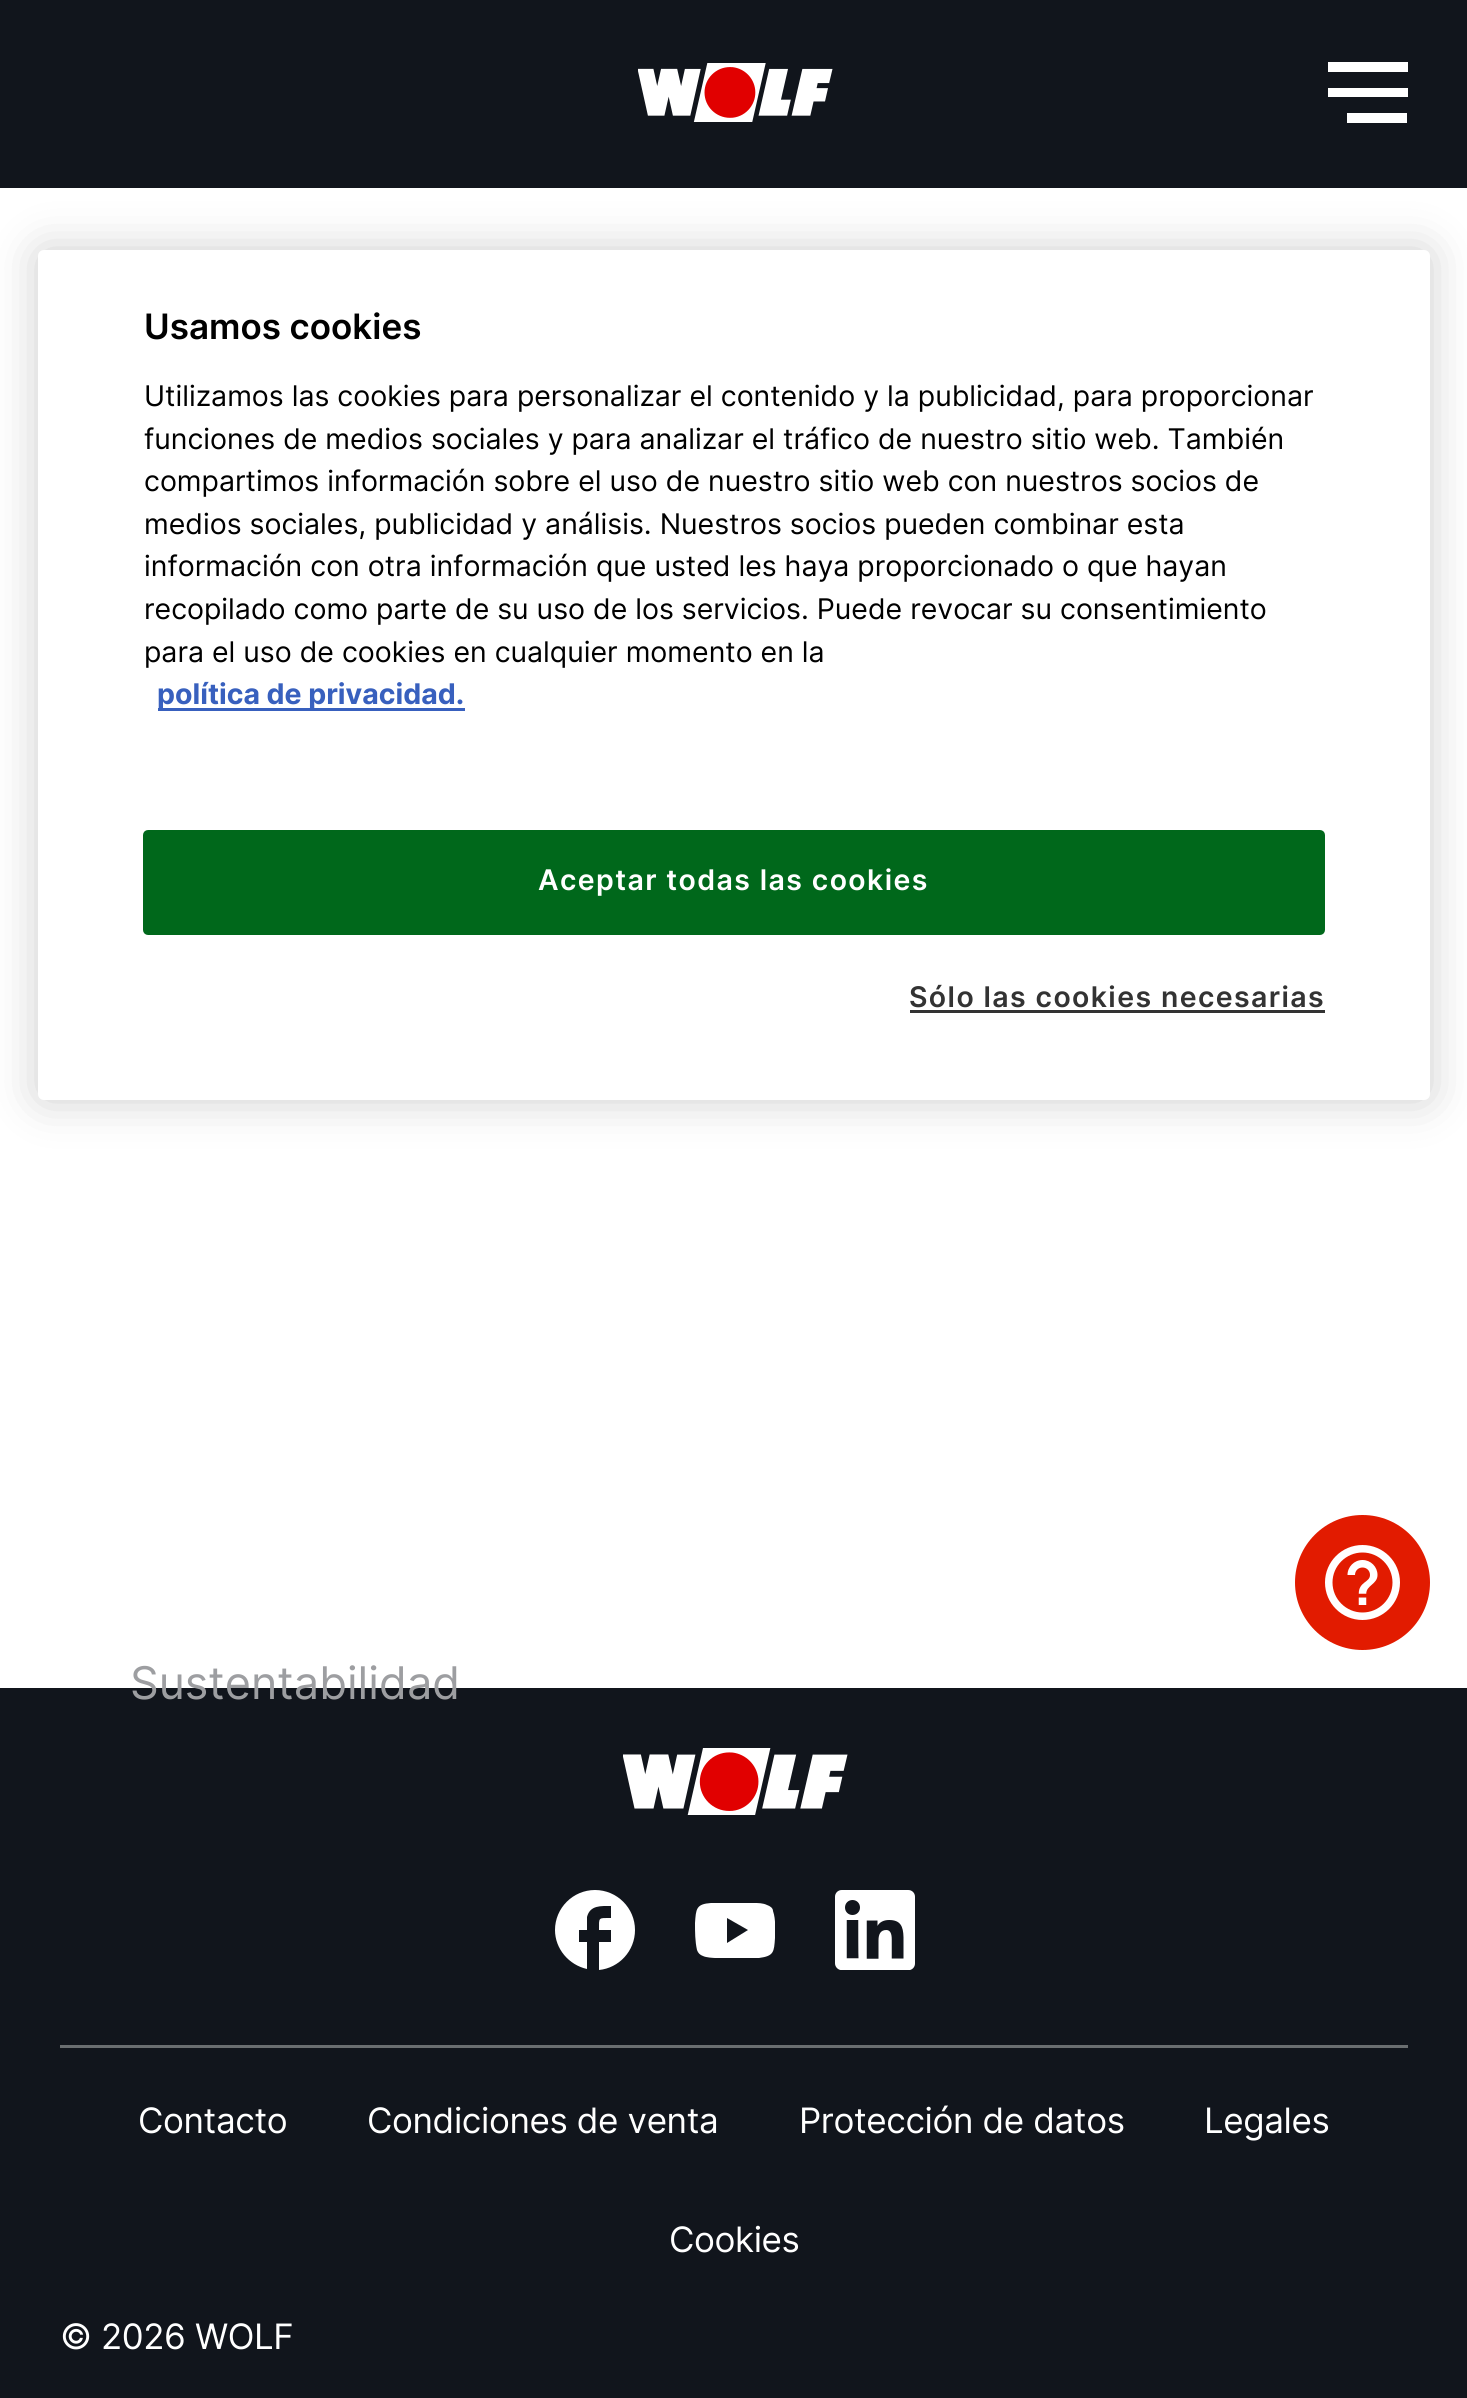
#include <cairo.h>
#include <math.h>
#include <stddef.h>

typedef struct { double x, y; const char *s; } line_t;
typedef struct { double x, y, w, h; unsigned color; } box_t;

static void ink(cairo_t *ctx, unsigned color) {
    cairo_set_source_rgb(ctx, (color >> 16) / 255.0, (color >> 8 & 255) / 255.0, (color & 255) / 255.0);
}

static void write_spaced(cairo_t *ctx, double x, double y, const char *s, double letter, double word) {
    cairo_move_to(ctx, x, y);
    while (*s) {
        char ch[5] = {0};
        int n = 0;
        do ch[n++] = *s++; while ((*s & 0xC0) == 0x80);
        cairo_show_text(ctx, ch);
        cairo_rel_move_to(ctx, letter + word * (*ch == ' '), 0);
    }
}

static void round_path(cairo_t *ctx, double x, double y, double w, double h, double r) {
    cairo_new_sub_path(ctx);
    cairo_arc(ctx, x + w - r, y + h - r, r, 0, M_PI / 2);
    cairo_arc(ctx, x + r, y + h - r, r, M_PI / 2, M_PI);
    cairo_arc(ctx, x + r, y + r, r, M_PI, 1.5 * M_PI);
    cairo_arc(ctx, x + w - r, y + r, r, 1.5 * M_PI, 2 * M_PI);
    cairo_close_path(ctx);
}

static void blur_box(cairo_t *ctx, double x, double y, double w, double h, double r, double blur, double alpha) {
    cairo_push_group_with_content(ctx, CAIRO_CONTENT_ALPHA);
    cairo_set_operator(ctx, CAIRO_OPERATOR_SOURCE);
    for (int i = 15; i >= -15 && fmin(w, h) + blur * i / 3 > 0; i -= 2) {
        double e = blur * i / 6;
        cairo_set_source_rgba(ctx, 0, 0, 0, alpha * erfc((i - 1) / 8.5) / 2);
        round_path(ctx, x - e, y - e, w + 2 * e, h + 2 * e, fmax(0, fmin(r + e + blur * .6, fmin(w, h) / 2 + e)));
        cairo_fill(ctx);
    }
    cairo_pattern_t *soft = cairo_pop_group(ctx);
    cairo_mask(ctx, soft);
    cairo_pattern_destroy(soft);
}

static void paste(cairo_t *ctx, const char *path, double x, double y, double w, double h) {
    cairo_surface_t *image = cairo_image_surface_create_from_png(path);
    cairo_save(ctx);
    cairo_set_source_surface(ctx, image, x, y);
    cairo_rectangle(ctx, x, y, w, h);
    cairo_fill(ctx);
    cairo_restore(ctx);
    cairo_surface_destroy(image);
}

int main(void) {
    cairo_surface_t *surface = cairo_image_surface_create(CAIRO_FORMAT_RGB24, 1467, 2398);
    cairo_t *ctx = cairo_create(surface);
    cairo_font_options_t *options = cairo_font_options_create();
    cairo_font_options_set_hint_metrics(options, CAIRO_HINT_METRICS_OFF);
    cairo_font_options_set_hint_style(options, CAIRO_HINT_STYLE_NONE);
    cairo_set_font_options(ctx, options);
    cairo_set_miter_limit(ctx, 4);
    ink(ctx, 0xFFFFFF);
    cairo_paint(ctx);
    ink(ctx, 0x11151C);
    cairo_rectangle(ctx, 0, 0, 1467, 188);
    cairo_fill(ctx);
    paste(ctx, "media/1.png", 638, 63, 195, 59);
    {
        static const box_t items[] = {
            {1328, 62, 80, 10, 0xFFFFFF},
            {1328, 88, 80, 9, 0xFFFFFF},
            {1347, 113, 60, 10, 0xFFFFFF},
        };
        for (size_t i = 0; i < sizeof items / sizeof *items; i++) {
            ink(ctx, items[i].color);
            cairo_rectangle(ctx, items[i].x, items[i].y, items[i].w, items[i].h);
            cairo_fill(ctx);
        }
    }
    ink(ctx, 0x000000);
    blur_box(ctx, 38, 250, 1392, 850, 6, 22.5, 0.2);
    ink(ctx, 0xFFFFFF);
    round_path(ctx, 38, 250, 1392, 850, 6);
    cairo_fill(ctx);
    cairo_select_font_face(ctx, "Inter SemiBold", CAIRO_FONT_SLANT_NORMAL, CAIRO_FONT_WEIGHT_NORMAL);
    cairo_set_font_size(ctx, 35);
    ink(ctx, 0x000000);
    cairo_move_to(ctx, 144, 339);
    cairo_show_text(ctx, "Usamos cookies");
    cairo_select_font_face(ctx, "Inter", CAIRO_FONT_SLANT_NORMAL, CAIRO_FONT_WEIGHT_NORMAL);
    cairo_set_font_size(ctx, 28.45);
    {
        static const line_t items[] = {
            {144, 406, "Utilizamos las cookies para personalizar el contenido y la publicidad, para proporcionar"},
            {144, 449, "funciones de medios sociales y para analizar el tráfico de nuestro sitio web. También"},
            {144, 491, "compartimos información sobre el uso de nuestro sitio web con nuestros socios de"},
            {144, 534, "medios sociales, publicidad y análisis. Nuestros socios pueden combinar esta"},
            {144, 576, "información con otra información que usted les haya proporcionado o que hayan"},
            {144, 619, "recopilado como parte de su uso de los servicios. Puede revocar su consentimiento"},
            {144, 662, "para el uso de cookies en cualquier momento en la"},
        };
        for (size_t i = 0; i < sizeof items / sizeof *items; i++) {
            cairo_move_to(ctx, items[i].x, items[i].y);
            cairo_show_text(ctx, items[i].s);
        }
    }
    ink(ctx, 0x3860BE);
    cairo_rectangle(ctx, 158, 708, 307, 3);
    cairo_fill(ctx);
    cairo_select_font_face(ctx, "Inter", CAIRO_FONT_SLANT_NORMAL, CAIRO_FONT_WEIGHT_BOLD);
    cairo_move_to(ctx, 157, 704);
    cairo_show_text(ctx, "política de privacidad.");
    ink(ctx, 0x00681B);
    round_path(ctx, 144.5, 831.5, 1179, 102, 3.5);
    cairo_fill_preserve(ctx);
    cairo_set_line_width(ctx, 3);
    cairo_stroke(ctx);
    cairo_select_font_face(ctx, "Inter SemiBold", CAIRO_FONT_SLANT_NORMAL, CAIRO_FONT_WEIGHT_NORMAL);
    ink(ctx, 0xFFFFFF);
    write_spaced(ctx, 538, 890, "Aceptar todas las cookies", 1.4, 0);
    ink(ctx, 0x333333);
    write_spaced(ctx, 909, 1007, "Sólo las cookies necesarias", 1.4, 0);
    cairo_rectangle(ctx, 910, 1010, 415, 3);
    cairo_fill(ctx);
    ink(ctx, 0xE21B00);
    cairo_arc(ctx, 1362.5, 1582.5, 67.5, 0, 2 * M_PI);
    cairo_fill(ctx);
    paste(ctx, "media/2.png", 1325, 1545, 75, 75);
    ink(ctx, 0x11151C);
    cairo_rectangle(ctx, 0, 1688, 1467, 710);
    cairo_fill(ctx);
    cairo_select_font_face(ctx, "Inter", CAIRO_FONT_SLANT_NORMAL, CAIRO_FONT_WEIGHT_NORMAL);
    cairo_set_font_size(ctx, 45);
    ink(ctx, 0x9D9EA1);
    cairo_move_to(ctx, 130, 1699);
    cairo_show_text(ctx, "Sustentabilidad");
    paste(ctx, "media/3.png", 623, 1748, 225, 67);
    ink(ctx, 0xFFFFFF);
    cairo_new_path(ctx);
    cairo_move_to(ctx, 635, 1930);
    cairo_curve_to(ctx, 635, 1908, 617, 1890, 595, 1890);
    cairo_curve_to(ctx, 573, 1890, 555, 1908, 555, 1930);
    cairo_curve_to(ctx, 555, 1949, 569, 1965, 587, 1969);
    cairo_line_to(ctx, 587, 1942);
    cairo_line_to(ctx, 579, 1942);
    cairo_line_to(ctx, 579, 1930);
    cairo_line_to(ctx, 587, 1930);
    cairo_line_to(ctx, 587, 1917);
    cairo_curve_to(ctx, 590, 1905, 601, 1906, 611, 1906);
    cairo_line_to(ctx, 611, 1918);
    cairo_curve_to(ctx, 598, 1918, 599, 1917, 599, 1930);
    cairo_line_to(ctx, 611, 1930);
    cairo_line_to(ctx, 611, 1942);
    cairo_line_to(ctx, 599, 1942);
    cairo_line_to(ctx, 599, 1970);
    cairo_curve_to(ctx, 619, 1968, 635, 1951, 635, 1930);
    cairo_close_path(ctx);
    cairo_fill(ctx);
    cairo_save(ctx);
    cairo_rectangle(ctx, 695, 1903, 80, 55);
    cairo_clip(ctx);
    cairo_new_path(ctx);
    cairo_move_to(ctx, 773, 1911);
    cairo_curve_to(ctx, 773, 1908, 770, 1906, 767, 1905);
    cairo_curve_to(ctx, 763, 1903, 758, 1903, 754, 1903);
    cairo_line_to(ctx, 731, 1903);
    cairo_line_to(ctx, 711, 1903);
    cairo_curve_to(ctx, 696, 1904, 696, 1909, 695, 1923);
    cairo_curve_to(ctx, 695, 1932, 695, 1941, 697, 1950);
    cairo_curve_to(ctx, 698, 1953, 700, 1955, 703, 1956);
    cairo_curve_to(ctx, 709, 1959, 728, 1958, 736, 1958);
    cairo_line_to(ctx, 759, 1958);
    cairo_curve_to(ctx, 774, 1956, 774, 1952, 775, 1938);
    cairo_curve_to(ctx, 775, 1929, 776, 1920, 773, 1911);
    cairo_close_path(ctx);
    cairo_move_to(ctx, 727, 1943);
    cairo_line_to(ctx, 727, 1918);
    cairo_line_to(ctx, 748, 1930);
    cairo_close_path(ctx);
    cairo_fill(ctx);
    cairo_restore(ctx);
    paste(ctx, "media/4.png", 835, 1890, 80, 80);
    ink(ctx, 0x6A6E70);
    cairo_rectangle(ctx, 60, 2045, 1348, 3);
    cairo_fill(ctx);
    cairo_set_font_size(ctx, 35);
    ink(ctx, 0xFFFFFF);
    {
        static const line_t items[] = {
            {138, 2133, "Contacto"},
            {367, 2133, "Condiciones de venta"},
            {799, 2133, "Protección de datos"},
            {1204, 2133, "Legales"},
            {669, 2252, "Cookies"},
            {60, 2349, "© 2026 WOLF"},
        };
        for (size_t i = 0; i < sizeof items / sizeof *items; i++) {
            write_spaced(ctx, items[i].x, items[i].y, items[i].s, -0.4, 0);
        }
    }
    cairo_surface_write_to_png(surface, "image.png");
    cairo_font_options_destroy(options);
    cairo_destroy(ctx);
    cairo_surface_destroy(surface);
    return 0;
}
